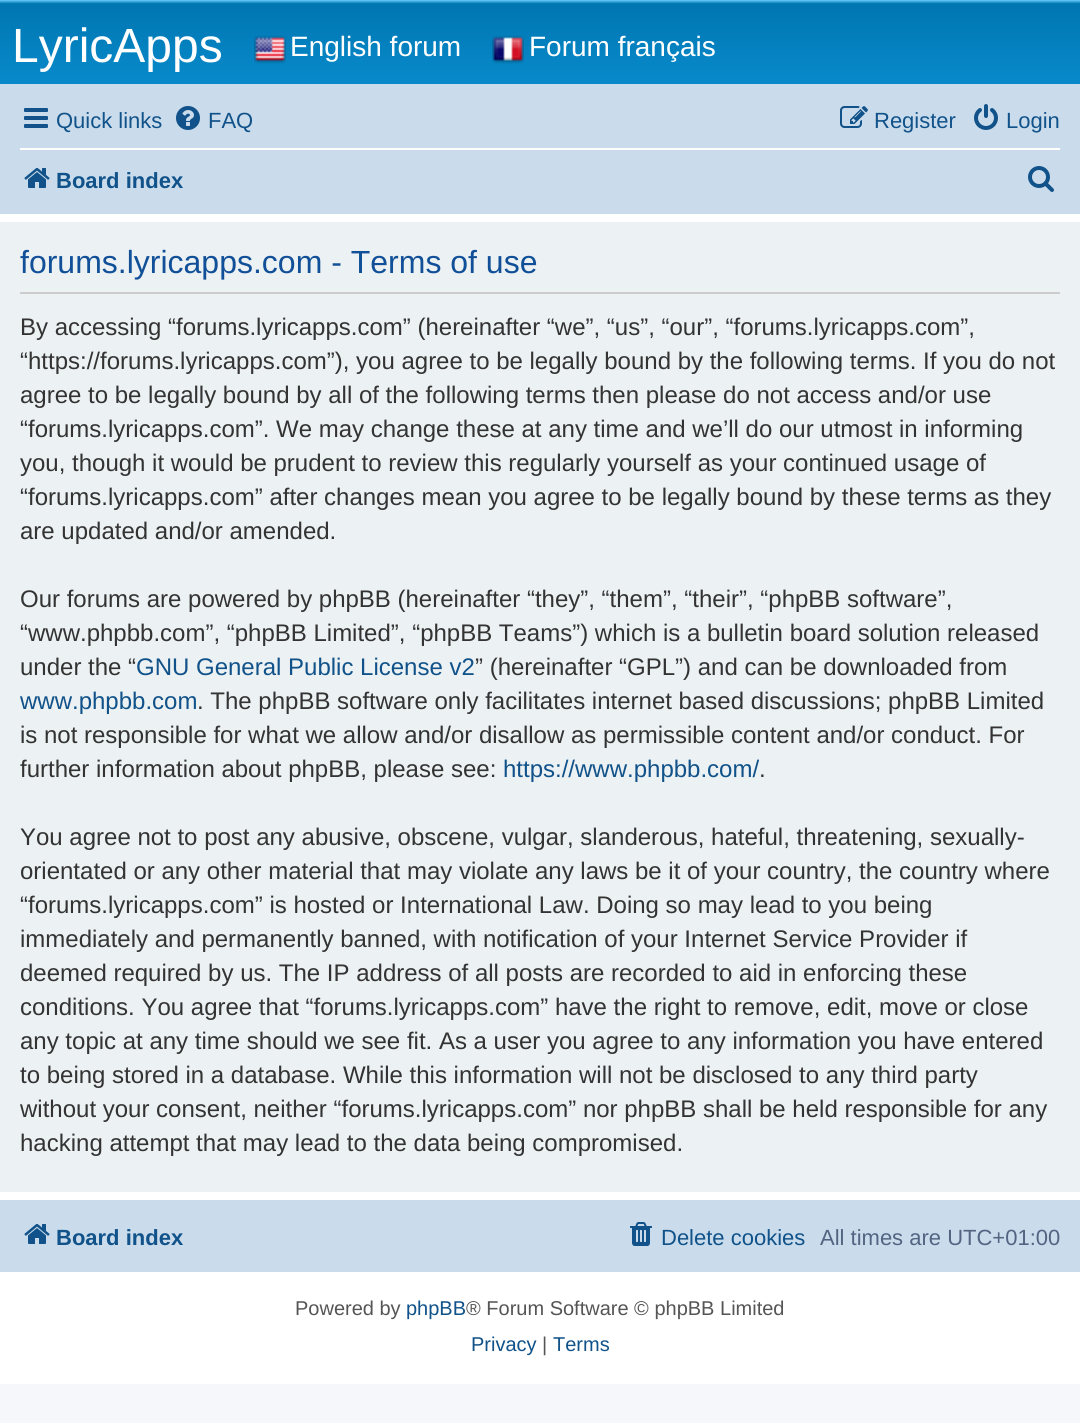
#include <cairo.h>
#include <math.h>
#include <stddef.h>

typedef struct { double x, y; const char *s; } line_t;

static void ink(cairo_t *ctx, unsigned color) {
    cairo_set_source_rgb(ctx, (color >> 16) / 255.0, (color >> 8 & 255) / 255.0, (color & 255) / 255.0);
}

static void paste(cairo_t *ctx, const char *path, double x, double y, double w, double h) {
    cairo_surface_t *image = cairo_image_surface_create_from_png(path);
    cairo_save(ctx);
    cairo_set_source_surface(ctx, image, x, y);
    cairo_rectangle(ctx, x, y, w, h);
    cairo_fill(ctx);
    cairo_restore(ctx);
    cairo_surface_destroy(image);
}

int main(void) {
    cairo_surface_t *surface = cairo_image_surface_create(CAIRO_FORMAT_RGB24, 1080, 1423);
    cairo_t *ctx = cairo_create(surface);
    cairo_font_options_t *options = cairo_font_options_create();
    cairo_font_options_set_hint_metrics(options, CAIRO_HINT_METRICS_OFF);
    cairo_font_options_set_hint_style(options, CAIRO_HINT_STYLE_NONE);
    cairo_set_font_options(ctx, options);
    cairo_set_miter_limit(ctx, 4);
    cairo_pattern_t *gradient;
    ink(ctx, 0xF5F7FA);
    cairo_paint(ctx);
    ink(ctx, 0xFFFFFF);
    cairo_rectangle(ctx, 0, 214, 1080, 1170);
    cairo_fill(ctx);
    gradient = cairo_pattern_create_linear(540, 0, 540, 184);
    cairo_pattern_add_color_stop_rgba(gradient, 0, 0.416, 0.808, 1, 1);
    cairo_pattern_add_color_stop_rgba(gradient, 0.02, 0, 0.463, 0.694, 1);
    cairo_pattern_add_color_stop_rgba(gradient, 1, 0.071, 0.639, 0.922, 1);
    cairo_set_source(ctx, gradient);
    cairo_pattern_destroy(gradient);
    cairo_rectangle(ctx, 0, 0, 1080, 84);
    cairo_fill(ctx);
    cairo_select_font_face(ctx, "Liberation Sans", CAIRO_FONT_SLANT_NORMAL, CAIRO_FONT_WEIGHT_NORMAL);
    cairo_set_font_size(ctx, 48);
    ink(ctx, 0xFFFFFF);
    cairo_move_to(ctx, 12, 62);
    cairo_show_text(ctx, "LyricApps");
    paste(ctx, "media/1.png", 254, 35, 32, 29);
    cairo_set_font_size(ctx, 28);
    cairo_move_to(ctx, 290, 56);
    cairo_show_text(ctx, "English forum");
    paste(ctx, "media/2.png", 492, 35, 32, 29);
    cairo_move_to(ctx, 529, 56);
    cairo_show_text(ctx, "Forum français");
    ink(ctx, 0xCADCEB);
    cairo_rectangle(ctx, 0, 84, 1080, 130);
    cairo_fill(ctx);
    paste(ctx, "media/3.png", 24, 108, 24, 20);
    cairo_set_font_size(ctx, 22);
    ink(ctx, 0x105289);
    cairo_move_to(ctx, 56, 128);
    cairo_show_text(ctx, "Quick links");
    paste(ctx, "media/4.png", 176, 106, 24, 24);
    cairo_move_to(ctx, 208, 128);
    cairo_show_text(ctx, "FAQ");
    paste(ctx, "media/5.png", 840, 106, 28, 22);
    cairo_move_to(ctx, 874, 128);
    cairo_show_text(ctx, "Register");
    paste(ctx, "media/6.png", 974, 104, 24, 26);
    cairo_move_to(ctx, 1006, 128);
    cairo_show_text(ctx, "Login");
    ink(ctx, 0xFFFFFF);
    cairo_rectangle(ctx, 20, 148, 1040, 2);
    cairo_fill(ctx);
    paste(ctx, "media/7.png", 24, 168, 26, 20);
    cairo_select_font_face(ctx, "Liberation Sans", CAIRO_FONT_SLANT_NORMAL, CAIRO_FONT_WEIGHT_BOLD);
    ink(ctx, 0x105289);
    cairo_move_to(ctx, 56, 188);
    cairo_show_text(ctx, "Board index");
    paste(ctx, "media/8.png", 1028, 166, 26, 26);
    ink(ctx, 0xECF1F3);
    cairo_rectangle(ctx, 0, 222, 1080, 970);
    cairo_fill(ctx);
    ink(ctx, 0xCCCCCC);
    cairo_rectangle(ctx, 20, 292, 1040, 2);
    cairo_fill(ctx);
    cairo_select_font_face(ctx, "Liberation Sans", CAIRO_FONT_SLANT_NORMAL, CAIRO_FONT_WEIGHT_NORMAL);
    cairo_set_font_size(ctx, 32);
    ink(ctx, 0x115098);
    cairo_move_to(ctx, 20, 273);
    cairo_show_text(ctx, "forums.lyricapps.com - Terms of use");
    cairo_set_font_size(ctx, 24);
    ink(ctx, 0x333333);
    {
        static const line_t items[] = {
            {20, 335, "By accessing “forums.lyricapps.com” (hereinafter “we”, “us”, “our”, “forums.lyricapps.com”,"},
            {20, 369, "“https://forums.lyricapps.com”), you agree to be legally bound by the following terms. If you do not"},
            {20, 403, "agree to be legally bound by all of the following terms then please do not access and/or use"},
            {20, 437, "“forums.lyricapps.com”. We may change these at any time and we’ll do our utmost in informing"},
            {20, 471, "you, though it would be prudent to review this regularly yourself as your continued usage of"},
            {20, 505, "“forums.lyricapps.com” after changes mean you agree to be legally bound by these terms as they"},
            {20, 539, "are updated and/or amended."},
            {20, 607, "Our forums are powered by phpBB (hereinafter “they”, “them”, “their”, “phpBB software”,"},
            {20, 641, "“www.phpbb.com”, “phpBB Limited”, “phpBB Teams”) which is a bulletin board solution released"},
            {20, 675, "under the “"},
        };
        for (size_t i = 0; i < sizeof items / sizeof *items; i++) {
            cairo_move_to(ctx, items[i].x, items[i].y);
            cairo_show_text(ctx, items[i].s);
        }
    }
    ink(ctx, 0x105289);
    cairo_move_to(ctx, 136, 675);
    cairo_show_text(ctx, "GNU General Public License v2");
    ink(ctx, 0x333333);
    cairo_move_to(ctx, 475, 675);
    cairo_show_text(ctx, "” (hereinafter “GPL”) and can be downloaded from");
    ink(ctx, 0x105289);
    cairo_move_to(ctx, 20, 709);
    cairo_show_text(ctx, "www.phpbb.com");
    ink(ctx, 0x333333);
    {
        static const line_t items[] = {
            {197, 709, ". The phpBB software only facilitates internet based discussions; phpBB Limited"},
            {20, 743, "is not responsible for what we allow and/or disallow as permissible content and/or conduct. For"},
            {20, 777, "further information about phpBB, please see:"},
        };
        for (size_t i = 0; i < sizeof items / sizeof *items; i++) {
            cairo_move_to(ctx, items[i].x, items[i].y);
            cairo_show_text(ctx, items[i].s);
        }
    }
    ink(ctx, 0x105289);
    cairo_move_to(ctx, 503, 777);
    cairo_show_text(ctx, "https://www.phpbb.com/");
    ink(ctx, 0x333333);
    {
        static const line_t items[] = {
            {759, 777, "."},
            {20, 845, "You agree not to post any abusive, obscene, vulgar, slanderous, hateful, threatening, sexually-"},
            {20, 879, "orientated or any other material that may violate any laws be it of your country, the country where"},
            {20, 913, "“forums.lyricapps.com” is hosted or International Law. Doing so may lead to you being"},
            {20, 947, "immediately and permanently banned, with notification of your Internet Service Provider if"},
            {20, 981, "deemed required by us. The IP address of all posts are recorded to aid in enforcing these"},
            {20, 1015, "conditions. You agree that “forums.lyricapps.com” have the right to remove, edit, move or close"},
            {20, 1049, "any topic at any time should we see fit. As a user you agree to any information you have entered"},
            {20, 1083, "to being stored in a database. While this information will not be disclosed to any third party"},
            {20, 1117, "without your consent, neither “forums.lyricapps.com” nor phpBB shall be held responsible for any"},
            {20, 1151, "hacking attempt that may lead to the data being compromised."},
        };
        for (size_t i = 0; i < sizeof items / sizeof *items; i++) {
            cairo_move_to(ctx, items[i].x, items[i].y);
            cairo_show_text(ctx, items[i].s);
        }
    }
    ink(ctx, 0xCADCEB);
    cairo_rectangle(ctx, 0, 1200, 1080, 72);
    cairo_fill(ctx);
    paste(ctx, "media/7.png", 24, 1224, 26, 20);
    cairo_select_font_face(ctx, "Liberation Sans", CAIRO_FONT_SLANT_NORMAL, CAIRO_FONT_WEIGHT_BOLD);
    cairo_set_font_size(ctx, 22);
    ink(ctx, 0x105289);
    cairo_move_to(ctx, 56, 1245);
    cairo_show_text(ctx, "Board index");
    paste(ctx, "media/9.png", 630, 1222, 22, 24);
    cairo_select_font_face(ctx, "Liberation Sans", CAIRO_FONT_SLANT_NORMAL, CAIRO_FONT_WEIGHT_NORMAL);
    cairo_move_to(ctx, 661, 1245);
    cairo_show_text(ctx, "Delete cookies");
    ink(ctx, 0x536482);
    cairo_move_to(ctx, 820, 1245);
    cairo_show_text(ctx, "All times are UTC+01:00");
    cairo_set_font_size(ctx, 20);
    ink(ctx, 0x555555);
    cairo_move_to(ctx, 295, 1315);
    cairo_show_text(ctx, "Powered by");
    ink(ctx, 0x105289);
    cairo_move_to(ctx, 406, 1315);
    cairo_show_text(ctx, "phpBB");
    ink(ctx, 0x555555);
    cairo_move_to(ctx, 466, 1315);
    cairo_show_text(ctx, "® Forum Software © phpBB Limited");
    ink(ctx, 0x105289);
    cairo_move_to(ctx, 471, 1351);
    cairo_show_text(ctx, "Privacy");
    ink(ctx, 0x555555);
    cairo_move_to(ctx, 542, 1351);
    cairo_show_text(ctx, "|");
    ink(ctx, 0x105289);
    cairo_move_to(ctx, 553, 1351);
    cairo_show_text(ctx, "Terms");
    cairo_surface_write_to_png(surface, "image.png");
    cairo_font_options_destroy(options);
    cairo_destroy(ctx);
    cairo_surface_destroy(surface);
    return 0;
}
